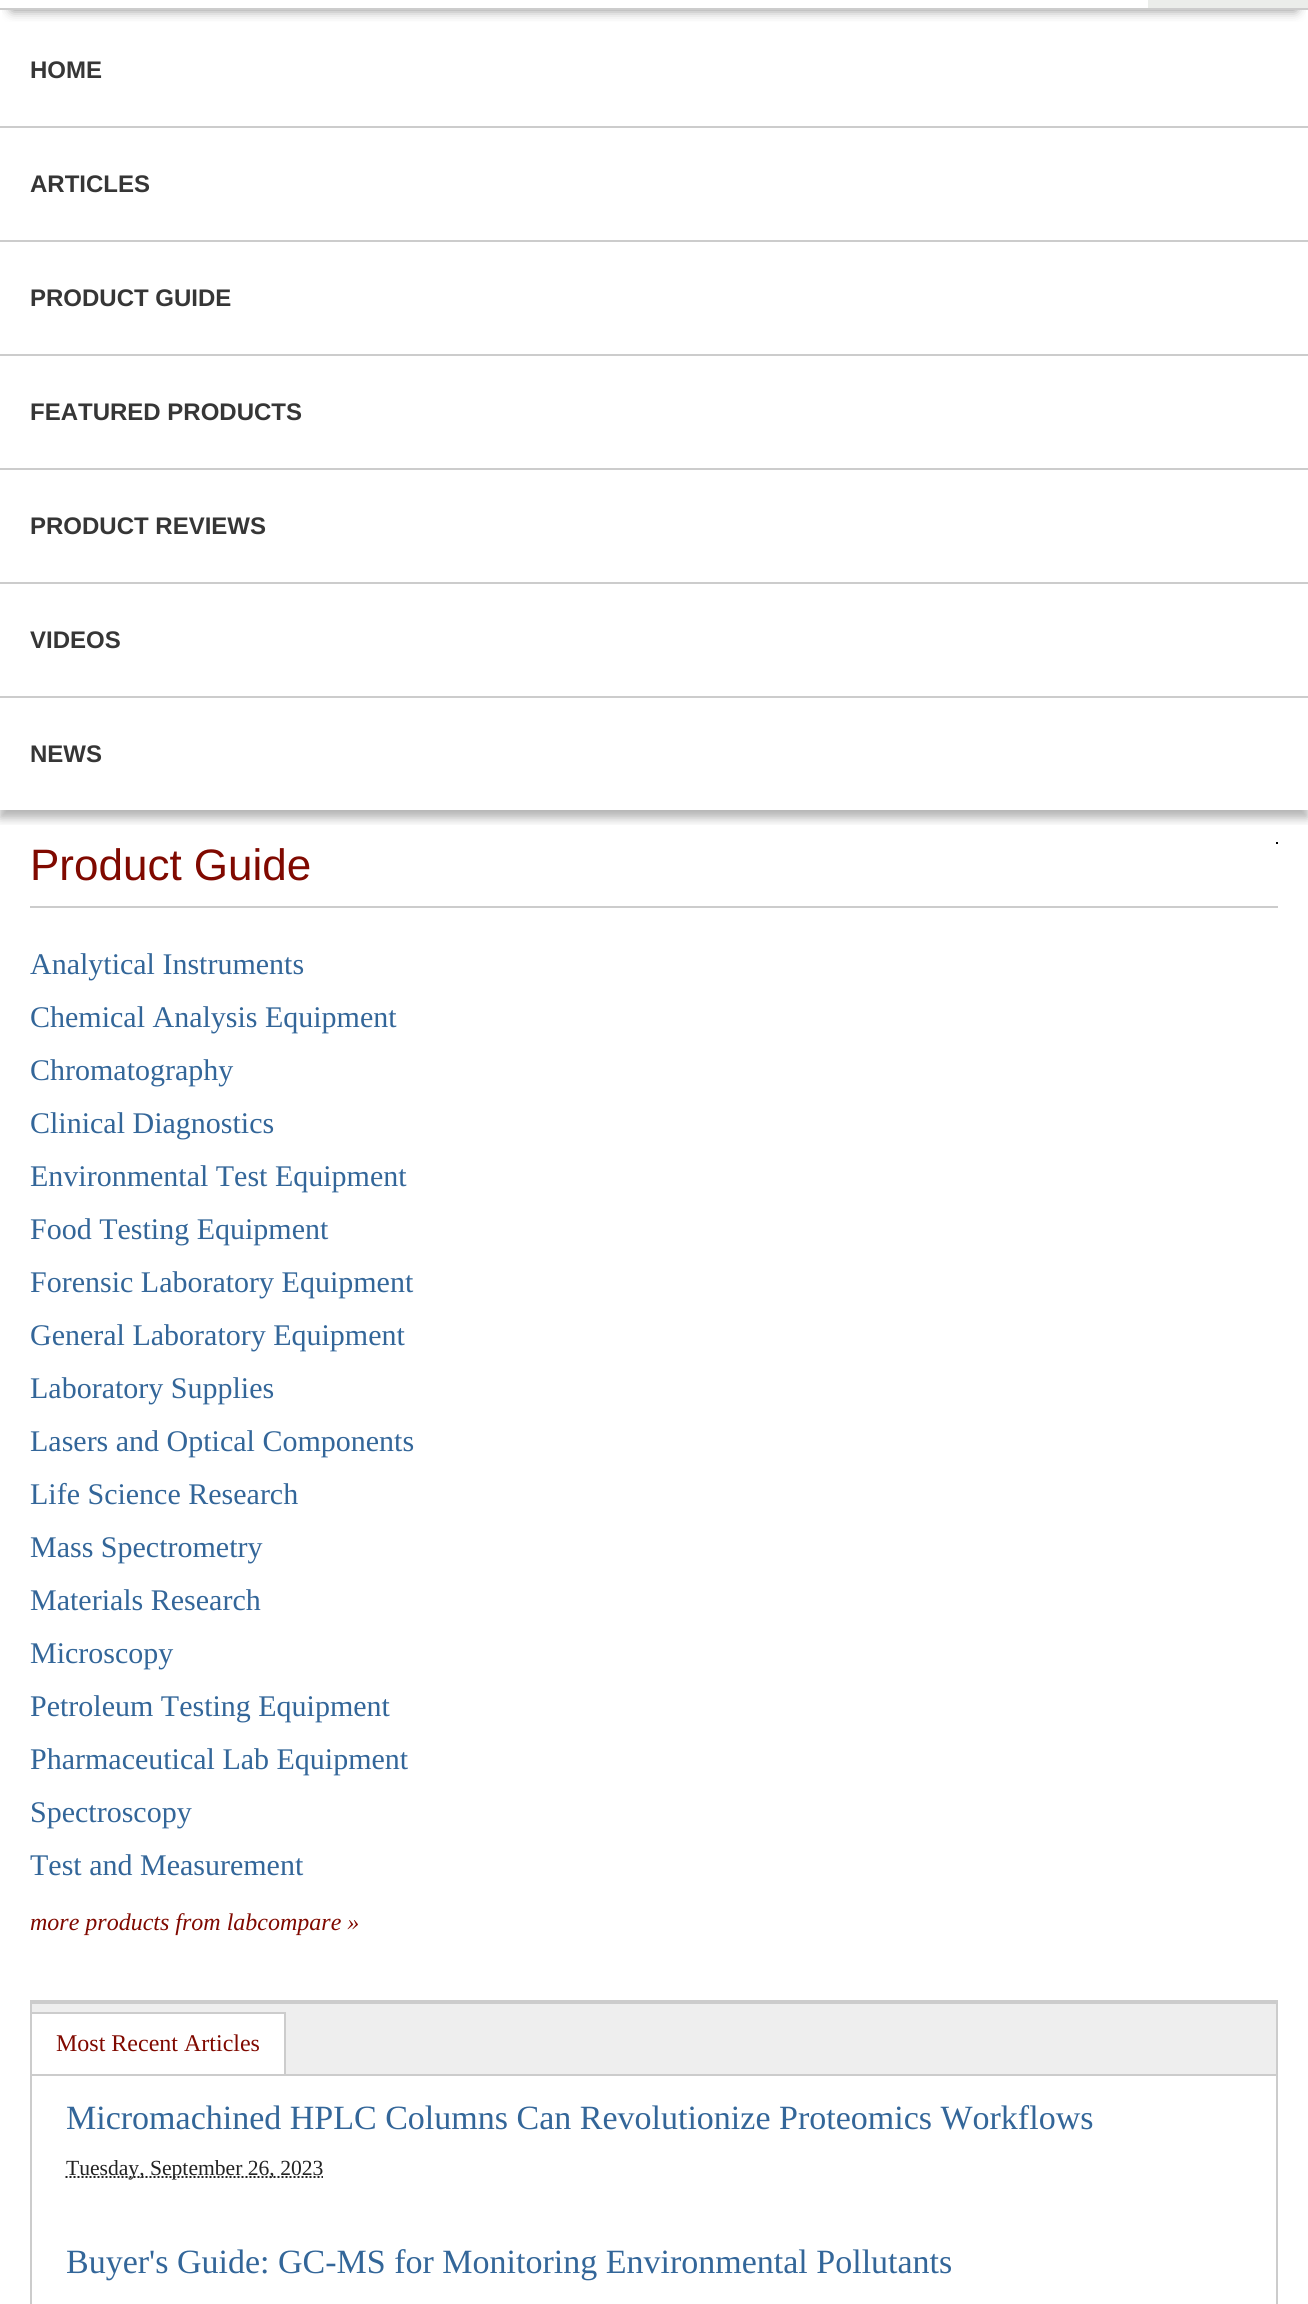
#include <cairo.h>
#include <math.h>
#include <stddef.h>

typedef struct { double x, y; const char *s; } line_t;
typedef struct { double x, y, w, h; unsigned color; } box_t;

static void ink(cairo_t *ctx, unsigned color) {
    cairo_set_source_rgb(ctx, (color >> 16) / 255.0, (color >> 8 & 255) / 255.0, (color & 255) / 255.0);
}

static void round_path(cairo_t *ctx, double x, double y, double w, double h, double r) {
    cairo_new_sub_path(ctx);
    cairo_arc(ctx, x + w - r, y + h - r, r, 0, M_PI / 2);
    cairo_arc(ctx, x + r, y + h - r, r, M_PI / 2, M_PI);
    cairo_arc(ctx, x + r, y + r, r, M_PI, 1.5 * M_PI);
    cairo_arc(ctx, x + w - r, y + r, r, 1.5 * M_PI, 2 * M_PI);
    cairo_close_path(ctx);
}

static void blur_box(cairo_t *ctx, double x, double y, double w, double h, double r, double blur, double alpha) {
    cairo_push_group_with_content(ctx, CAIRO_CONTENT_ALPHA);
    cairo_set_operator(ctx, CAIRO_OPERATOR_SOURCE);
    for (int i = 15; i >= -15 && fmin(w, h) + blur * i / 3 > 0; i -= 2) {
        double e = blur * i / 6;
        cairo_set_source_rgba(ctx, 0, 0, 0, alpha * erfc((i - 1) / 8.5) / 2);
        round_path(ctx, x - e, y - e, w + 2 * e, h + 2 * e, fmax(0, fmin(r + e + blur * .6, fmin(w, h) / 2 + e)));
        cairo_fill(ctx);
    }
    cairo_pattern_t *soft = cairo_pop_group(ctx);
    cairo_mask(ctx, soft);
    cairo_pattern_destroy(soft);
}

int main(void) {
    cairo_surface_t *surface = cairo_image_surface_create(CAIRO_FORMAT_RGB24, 1308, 2304);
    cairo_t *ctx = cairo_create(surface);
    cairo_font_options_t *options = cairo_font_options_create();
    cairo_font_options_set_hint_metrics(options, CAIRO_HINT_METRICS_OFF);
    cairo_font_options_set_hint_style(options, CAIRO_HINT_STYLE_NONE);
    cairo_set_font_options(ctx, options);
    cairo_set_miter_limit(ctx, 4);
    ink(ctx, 0xFFFFFF);
    cairo_paint(ctx);
    cairo_save(ctx);
    cairo_rectangle(ctx, 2, 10, 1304, 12);
    cairo_clip(ctx);
    ink(ctx, 0x878787);
    blur_box(ctx, 12, -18, 1284, 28, 0, 6, 1);
    cairo_restore(ctx);
    cairo_save(ctx);
    cairo_rectangle(ctx, 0, 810, 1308, 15);
    cairo_clip(ctx);
    ink(ctx, 0x000000);
    blur_box(ctx, 0, -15, 1308, 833, 0, 5, 0.3);
    cairo_restore(ctx);
    {
        static const box_t items[] = {
            {0, 8, 1308, 2, 0xCCCCCC},
            {1148, 0, 160, 8, 0xEBEDEA},
            {0, 126, 1308, 2, 0xCCCCCC},
        };
        for (size_t i = 0; i < sizeof items / sizeof *items; i++) {
            ink(ctx, items[i].color);
            cairo_rectangle(ctx, items[i].x, items[i].y, items[i].w, items[i].h);
            cairo_fill(ctx);
        }
    }
    cairo_select_font_face(ctx, "Liberation Sans", CAIRO_FONT_SLANT_NORMAL, CAIRO_FONT_WEIGHT_BOLD);
    cairo_set_font_size(ctx, 24);
    ink(ctx, 0x363636);
    cairo_move_to(ctx, 30, 78);
    cairo_show_text(ctx, "HOME");
    ink(ctx, 0xCCCCCC);
    cairo_rectangle(ctx, 0, 240, 1308, 2);
    cairo_fill(ctx);
    ink(ctx, 0x363636);
    cairo_move_to(ctx, 30, 192);
    cairo_show_text(ctx, "ARTICLES");
    ink(ctx, 0xCCCCCC);
    cairo_rectangle(ctx, 0, 354, 1308, 2);
    cairo_fill(ctx);
    ink(ctx, 0x363636);
    cairo_move_to(ctx, 30, 306);
    cairo_show_text(ctx, "PRODUCT GUIDE");
    ink(ctx, 0xCCCCCC);
    cairo_rectangle(ctx, 0, 468, 1308, 2);
    cairo_fill(ctx);
    ink(ctx, 0x363636);
    cairo_move_to(ctx, 30, 420);
    cairo_show_text(ctx, "FEATURED PRODUCTS");
    ink(ctx, 0xCCCCCC);
    cairo_rectangle(ctx, 0, 582, 1308, 2);
    cairo_fill(ctx);
    ink(ctx, 0x363636);
    cairo_move_to(ctx, 30, 534);
    cairo_show_text(ctx, "PRODUCT REVIEWS");
    ink(ctx, 0xCCCCCC);
    cairo_rectangle(ctx, 0, 696, 1308, 2);
    cairo_fill(ctx);
    ink(ctx, 0x363636);
    cairo_move_to(ctx, 30, 648);
    cairo_show_text(ctx, "VIDEOS");
    cairo_move_to(ctx, 30, 762);
    cairo_show_text(ctx, "NEWS");
    ink(ctx, 0x000000);
    cairo_rectangle(ctx, 1276, 842, 2, 2);
    cairo_fill(ctx);
    ink(ctx, 0xCCCCCC);
    cairo_rectangle(ctx, 30, 906, 1248, 2);
    cairo_fill(ctx);
    cairo_select_font_face(ctx, "Liberation Sans", CAIRO_FONT_SLANT_NORMAL, CAIRO_FONT_WEIGHT_NORMAL);
    cairo_set_font_size(ctx, 44);
    ink(ctx, 0x800900);
    cairo_move_to(ctx, 30, 880);
    cairo_show_text(ctx, "Product Guide");
    cairo_select_font_face(ctx, "Liberation Serif", CAIRO_FONT_SLANT_NORMAL, CAIRO_FONT_WEIGHT_NORMAL);
    cairo_set_font_size(ctx, 30);
    ink(ctx, 0x336699);
    {
        static const line_t items[] = {
            {30, 974, "Analytical Instruments"},
            {30, 1027, "Chemical Analysis Equipment"},
            {30, 1080, "Chromatography"},
            {30, 1133, "Clinical Diagnostics"},
            {30, 1186, "Environmental Test Equipment"},
            {30, 1239, "Food Testing Equipment"},
            {30, 1292, "Forensic Laboratory Equipment"},
            {30, 1345, "General Laboratory Equipment"},
            {30, 1398, "Laboratory Supplies"},
            {30, 1451, "Lasers and Optical Components"},
            {30, 1504, "Life Science Research"},
            {30, 1557, "Mass Spectrometry"},
            {30, 1610, "Materials Research"},
            {30, 1663, "Microscopy"},
            {30, 1716, "Petroleum Testing Equipment"},
            {30, 1769, "Pharmaceutical Lab Equipment"},
            {30, 1822, "Spectroscopy"},
            {30, 1875, "Test and Measurement"},
        };
        for (size_t i = 0; i < sizeof items / sizeof *items; i++) {
            cairo_move_to(ctx, items[i].x, items[i].y);
            cairo_show_text(ctx, items[i].s);
        }
    }
    cairo_select_font_face(ctx, "Liberation Serif", CAIRO_FONT_SLANT_ITALIC, CAIRO_FONT_WEIGHT_NORMAL);
    cairo_set_font_size(ctx, 24);
    ink(ctx, 0x800900);
    cairo_move_to(ctx, 30, 1930);
    cairo_show_text(ctx, "more products from labcompare »");
    {
        static const box_t items[] = {
            {30, 2000, 1248, 2, 0xCCCCCC},
            {1276, 2002, 2, 302, 0xCCCCCC},
            {30, 2002, 2, 302, 0xCCCCCC},
            {32, 2004, 1244, 70, 0xEEEEEE},
            {32, 2002, 1244, 2, 0xCCCCCC},
            {32, 2074, 1244, 2, 0xCCCCCC},
            {32, 2014, 252, 60, 0xFFFFFF},
            {32, 2012, 254, 2, 0xCCCCCC},
            {284, 2012, 2, 62, 0xCCCCCC},
        };
        for (size_t i = 0; i < sizeof items / sizeof *items; i++) {
            ink(ctx, items[i].color);
            cairo_rectangle(ctx, items[i].x, items[i].y, items[i].w, items[i].h);
            cairo_fill(ctx);
        }
    }
    cairo_select_font_face(ctx, "Liberation Serif", CAIRO_FONT_SLANT_NORMAL, CAIRO_FONT_WEIGHT_NORMAL);
    ink(ctx, 0x800900);
    cairo_move_to(ctx, 56, 2051);
    cairo_show_text(ctx, "Most Recent Articles");
    cairo_set_font_size(ctx, 34);
    ink(ctx, 0x336699);
    cairo_move_to(ctx, 66, 2129);
    cairo_show_text(ctx, "Micromachined HPLC Columns Can Revolutionize Proteomics Workflows");
    cairo_new_path(ctx);
    cairo_move_to(ctx, 65.5, 2177);
    cairo_line_to(ctx, 323, 2177);
    ink(ctx, 0x222222);
    cairo_set_dash(ctx, (double[]){2, 2}, 2, 0);
    cairo_stroke(ctx);
    cairo_set_font_size(ctx, 21.6);
    cairo_move_to(ctx, 66, 2175);
    cairo_show_text(ctx, "Tuesday, September 26, 2023");
    cairo_set_font_size(ctx, 34);
    ink(ctx, 0x336699);
    cairo_move_to(ctx, 66, 2273);
    cairo_show_text(ctx, "Buyer's Guide: GC-MS for Monitoring Environmental Pollutants");
    cairo_surface_write_to_png(surface, "image.png");
    cairo_font_options_destroy(options);
    cairo_destroy(ctx);
    cairo_surface_destroy(surface);
    return 0;
}
